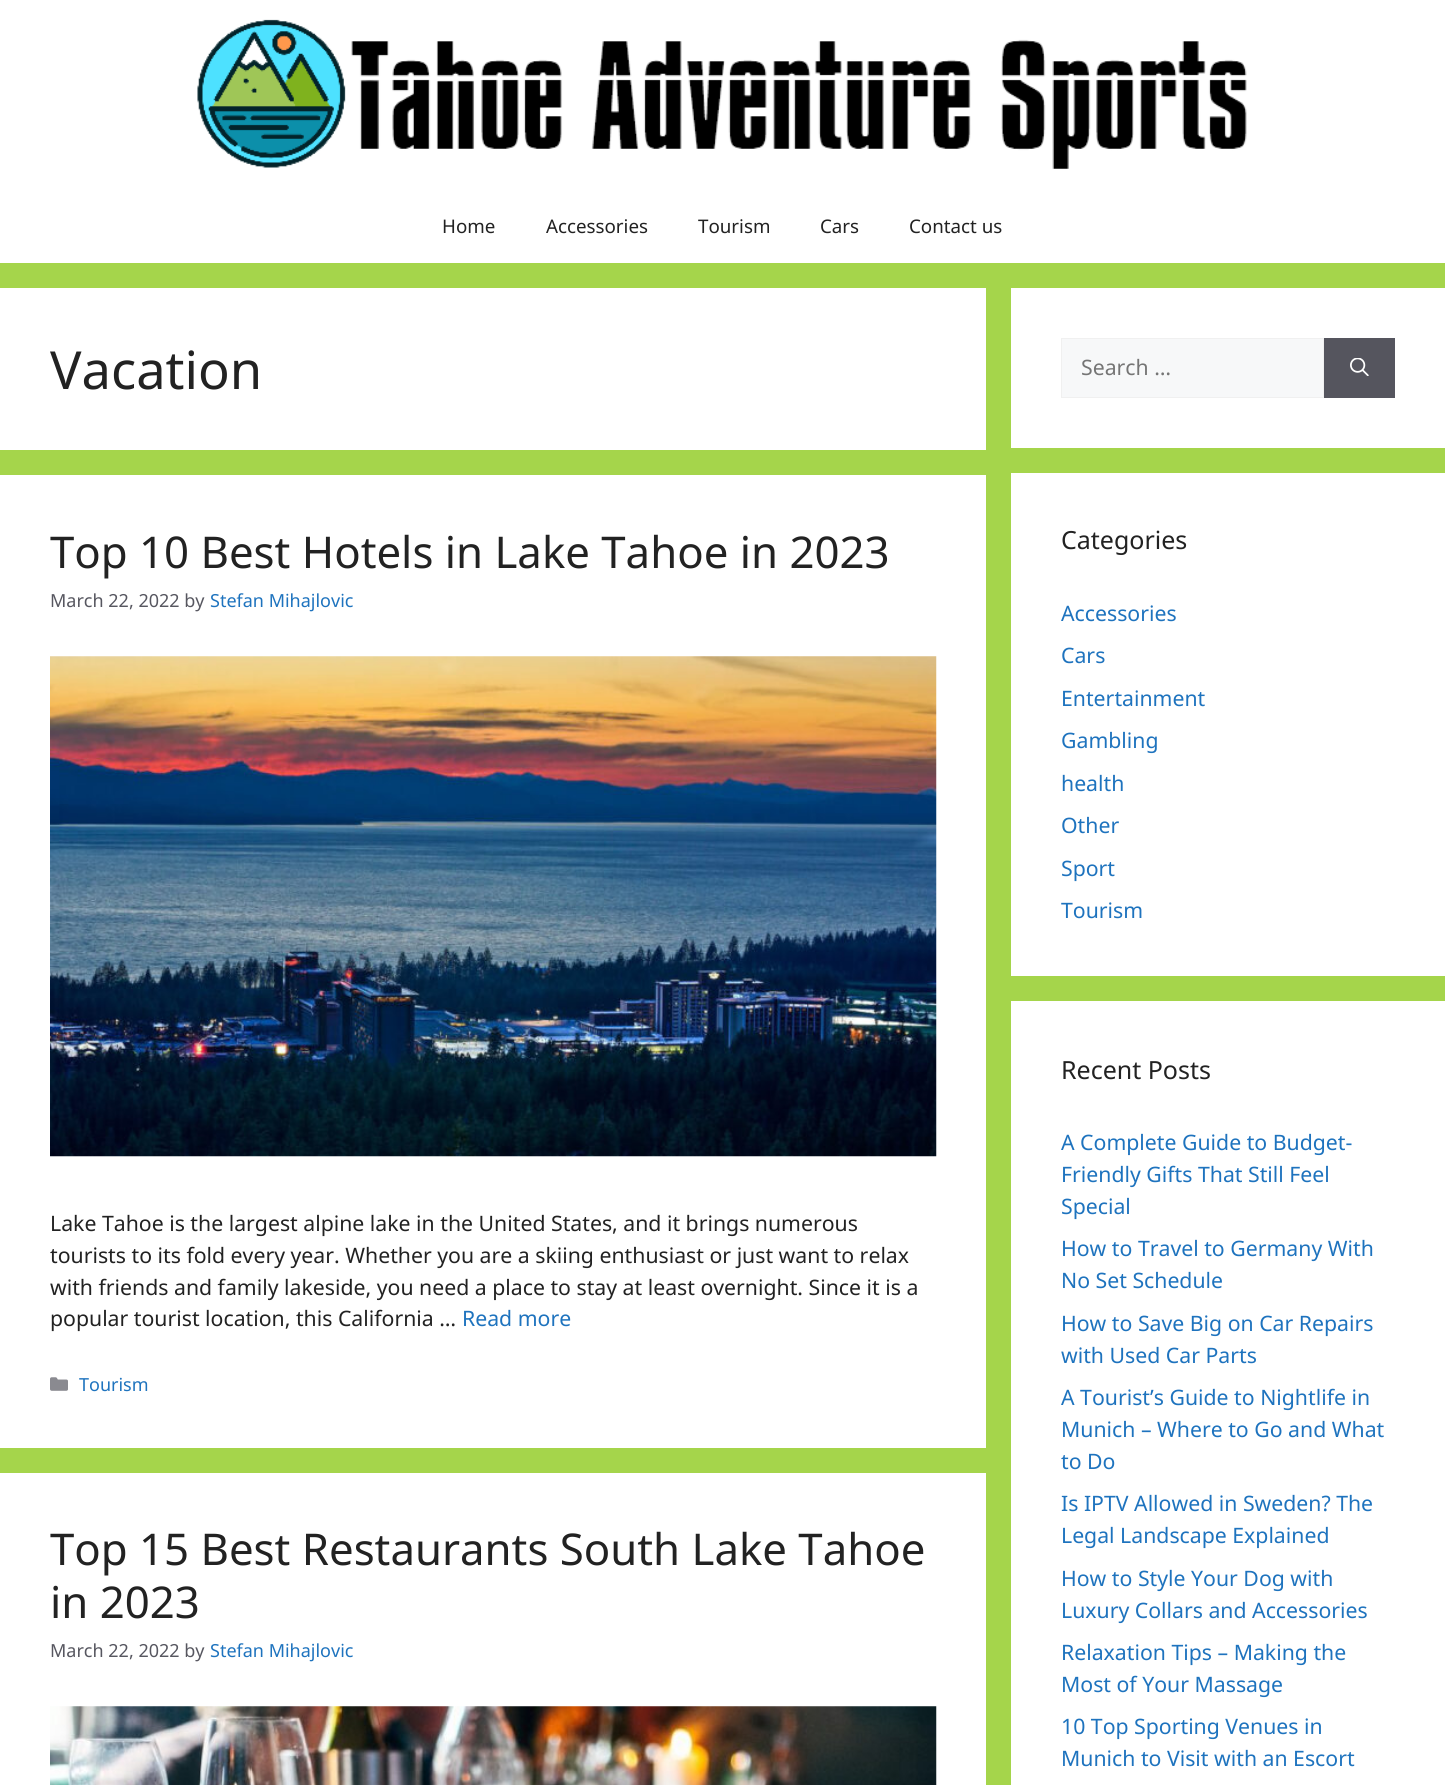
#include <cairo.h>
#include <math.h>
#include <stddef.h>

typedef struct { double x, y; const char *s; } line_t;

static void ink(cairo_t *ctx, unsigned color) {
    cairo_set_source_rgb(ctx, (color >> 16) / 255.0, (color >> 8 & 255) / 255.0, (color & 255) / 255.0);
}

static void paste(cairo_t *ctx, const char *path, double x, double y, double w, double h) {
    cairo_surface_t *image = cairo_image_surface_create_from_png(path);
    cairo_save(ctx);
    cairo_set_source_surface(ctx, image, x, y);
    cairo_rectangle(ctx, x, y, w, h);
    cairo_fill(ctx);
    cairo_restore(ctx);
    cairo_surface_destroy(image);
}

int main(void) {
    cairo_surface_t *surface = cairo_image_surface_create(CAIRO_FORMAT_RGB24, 1445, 1785);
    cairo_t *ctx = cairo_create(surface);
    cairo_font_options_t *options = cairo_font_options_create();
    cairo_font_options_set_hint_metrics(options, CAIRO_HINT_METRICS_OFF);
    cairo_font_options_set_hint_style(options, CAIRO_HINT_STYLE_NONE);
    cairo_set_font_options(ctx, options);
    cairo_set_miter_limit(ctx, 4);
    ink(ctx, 0xA5D54B);
    cairo_paint(ctx);
    ink(ctx, 0xFFFFFF);
    cairo_rectangle(ctx, 0, 0, 1445, 263);
    cairo_fill(ctx);
    paste(ctx, "media/1.png", 197, 19, 1050, 150);
    cairo_select_font_face(ctx, "Noto Sans", CAIRO_FONT_SLANT_NORMAL, CAIRO_FONT_WEIGHT_NORMAL);
    cairo_set_font_size(ctx, 18.75);
    ink(ctx, 0x222222);
    {
        static const line_t items[] = {
            {442, 233, "Home"},
            {546, 233, "Accessories"},
            {698, 233, "Tourism"},
            {820, 233, "Cars"},
            {909, 233, "Contact us"},
        };
        for (size_t i = 0; i < sizeof items / sizeof *items; i++) {
            cairo_move_to(ctx, items[i].x, items[i].y);
            cairo_show_text(ctx, items[i].s);
        }
    }
    ink(ctx, 0xFFFFFF);
    cairo_rectangle(ctx, 0, 288, 986, 162);
    cairo_fill(ctx);
    cairo_set_font_size(ctx, 52.5);
    ink(ctx, 0x222222);
    cairo_move_to(ctx, 50, 389);
    cairo_show_text(ctx, "Vacation");
    ink(ctx, 0xFFFFFF);
    cairo_rectangle(ctx, 0, 475, 986, 973);
    cairo_fill(ctx);
    cairo_set_font_size(ctx, 43.75);
    ink(ctx, 0x222222);
    cairo_move_to(ctx, 50, 568);
    cairo_show_text(ctx, "Top 10 Best Hotels in Lake Tahoe in 2023");
    cairo_set_font_size(ctx, 18);
    ink(ctx, 0x575760);
    cairo_move_to(ctx, 50, 607);
    cairo_show_text(ctx, "March 22, 2022 by");
    ink(ctx, 0x1E73BE);
    cairo_move_to(ctx, 210, 607);
    cairo_show_text(ctx, "Stefan Mihajlovic");
    paste(ctx, "media/2.png", 50, 656, 887, 501);
    cairo_set_font_size(ctx, 21.25);
    ink(ctx, 0x222222);
    {
        static const line_t items[] = {
            {50, 1231, "Lake Tahoe is the largest alpine lake in the United States, and it brings numerous"},
            {50, 1263, "tourists to its fold every year. Whether you are a skiing enthusiast or just want to relax"},
            {50, 1295, "with friends and family lakeside, you need a place to stay at least overnight. Since it is a"},
            {50, 1326, "popular tourist location, this California …"},
        };
        for (size_t i = 0; i < sizeof items / sizeof *items; i++) {
            cairo_move_to(ctx, items[i].x, items[i].y);
            cairo_show_text(ctx, items[i].s);
        }
    }
    ink(ctx, 0x1E73BE);
    cairo_move_to(ctx, 462, 1326);
    cairo_show_text(ctx, "Read more");
    paste(ctx, "media/3.png", 50, 1377, 18, 14);
    cairo_set_font_size(ctx, 18);
    cairo_move_to(ctx, 79, 1391);
    cairo_show_text(ctx, "Tourism");
    ink(ctx, 0xFFFFFF);
    cairo_rectangle(ctx, 0, 1473, 986, 312);
    cairo_fill(ctx);
    cairo_set_font_size(ctx, 43.75);
    ink(ctx, 0x222222);
    cairo_move_to(ctx, 50, 1565);
    cairo_show_text(ctx, "Top 15 Best Restaurants South Lake Tahoe");
    cairo_move_to(ctx, 50, 1618);
    cairo_show_text(ctx, "in 2023");
    cairo_set_font_size(ctx, 18);
    ink(ctx, 0x575760);
    cairo_move_to(ctx, 50, 1657);
    cairo_show_text(ctx, "March 22, 2022 by");
    ink(ctx, 0x1E73BE);
    cairo_move_to(ctx, 210, 1657);
    cairo_show_text(ctx, "Stefan Mihajlovic");
    paste(ctx, "media/4.png", 50, 1706, 887, 79);
    ink(ctx, 0xFFFFFF);
    cairo_rectangle(ctx, 1011, 288, 434, 160);
    cairo_fill(ctx);
    ink(ctx, 0xF7F8F9);
    cairo_rectangle(ctx, 1061.5, 338.5, 262, 59);
    cairo_fill_preserve(ctx);
    ink(ctx, 0xF0F0F0);
    cairo_set_line_width(ctx, 1);
    cairo_stroke(ctx);
    cairo_set_font_size(ctx, 21.25);
    ink(ctx, 0x757575);
    cairo_move_to(ctx, 1081, 375);
    cairo_show_text(ctx, "Search …");
    ink(ctx, 0x55555E);
    cairo_rectangle(ctx, 1324, 338, 71, 60);
    cairo_fill(ctx);
    paste(ctx, "media/5.png", 1350, 358, 19, 18);
    ink(ctx, 0xFFFFFF);
    cairo_rectangle(ctx, 1011, 473, 434, 503);
    cairo_fill(ctx);
    cairo_set_font_size(ctx, 25);
    ink(ctx, 0x222222);
    cairo_move_to(ctx, 1061, 549);
    cairo_show_text(ctx, "Categories");
    cairo_set_font_size(ctx, 21.25);
    ink(ctx, 0x1E73BE);
    {
        static const line_t items[] = {
            {1061, 621, "Accessories"},
            {1061, 663, "Cars"},
            {1061, 706, "Entertainment"},
            {1061, 748, "Gambling"},
            {1061, 791, "health"},
            {1061, 833, "Other"},
            {1061, 876, "Sport"},
            {1061, 918, "Tourism"},
        };
        for (size_t i = 0; i < sizeof items / sizeof *items; i++) {
            cairo_move_to(ctx, items[i].x, items[i].y);
            cairo_show_text(ctx, items[i].s);
        }
    }
    ink(ctx, 0xFFFFFF);
    cairo_rectangle(ctx, 1011, 1001, 434, 784);
    cairo_fill(ctx);
    cairo_set_font_size(ctx, 25);
    ink(ctx, 0x222222);
    cairo_move_to(ctx, 1061, 1079);
    cairo_show_text(ctx, "Recent Posts");
    cairo_set_font_size(ctx, 21.25);
    ink(ctx, 0x1E73BE);
    {
        static const line_t items[] = {
            {1061, 1150, "A Complete Guide to Budget-"},
            {1061, 1182, "Friendly Gifts That Still Feel"},
            {1061, 1214, "Special"},
            {1061, 1256, "How to Travel to Germany With"},
            {1061, 1288, "No Set Schedule"},
            {1061, 1331, "How to Save Big on Car Repairs"},
            {1061, 1363, "with Used Car Parts"},
            {1061, 1405, "A Tourist’s Guide to Nightlife in"},
            {1061, 1437, "Munich – Where to Go and What"},
            {1061, 1469, "to Do"},
            {1061, 1511, "Is IPTV Allowed in Sweden? The"},
            {1061, 1543, "Legal Landscape Explained"},
            {1061, 1586, "How to Style Your Dog with"},
            {1061, 1618, "Luxury Collars and Accessories"},
            {1061, 1660, "Relaxation Tips – Making the"},
            {1061, 1692, "Most of Your Massage"},
            {1061, 1734, "10 Top Sporting Venues in"},
            {1061, 1766, "Munich to Visit with an Escort"},
        };
        for (size_t i = 0; i < sizeof items / sizeof *items; i++) {
            cairo_move_to(ctx, items[i].x, items[i].y);
            cairo_show_text(ctx, items[i].s);
        }
    }
    cairo_surface_write_to_png(surface, "image.png");
    cairo_font_options_destroy(options);
    cairo_destroy(ctx);
    cairo_surface_destroy(surface);
    return 0;
}
